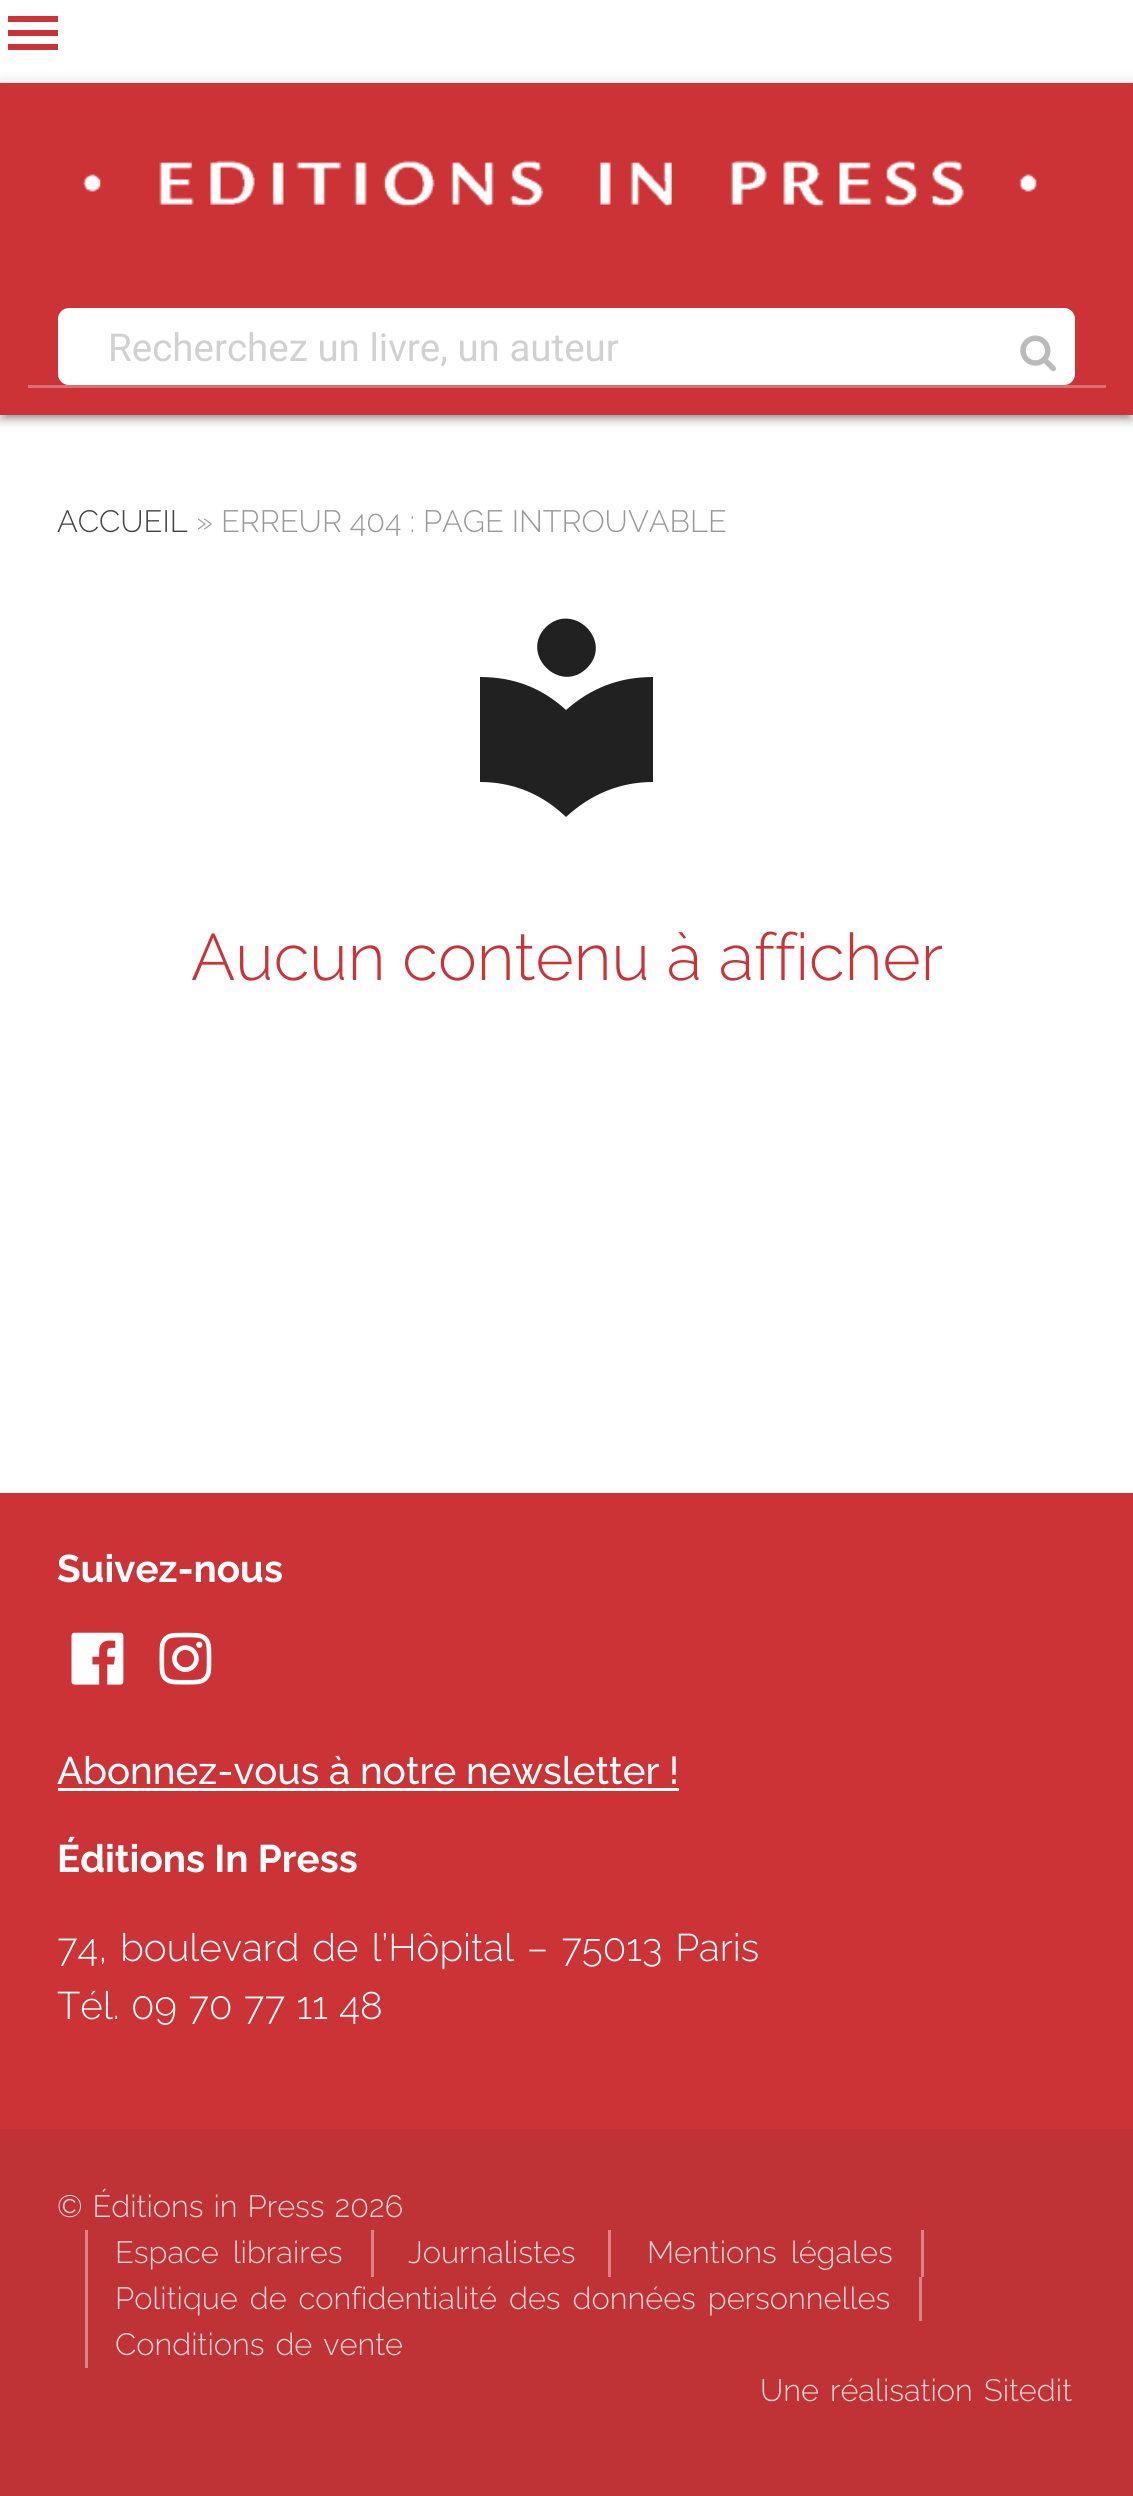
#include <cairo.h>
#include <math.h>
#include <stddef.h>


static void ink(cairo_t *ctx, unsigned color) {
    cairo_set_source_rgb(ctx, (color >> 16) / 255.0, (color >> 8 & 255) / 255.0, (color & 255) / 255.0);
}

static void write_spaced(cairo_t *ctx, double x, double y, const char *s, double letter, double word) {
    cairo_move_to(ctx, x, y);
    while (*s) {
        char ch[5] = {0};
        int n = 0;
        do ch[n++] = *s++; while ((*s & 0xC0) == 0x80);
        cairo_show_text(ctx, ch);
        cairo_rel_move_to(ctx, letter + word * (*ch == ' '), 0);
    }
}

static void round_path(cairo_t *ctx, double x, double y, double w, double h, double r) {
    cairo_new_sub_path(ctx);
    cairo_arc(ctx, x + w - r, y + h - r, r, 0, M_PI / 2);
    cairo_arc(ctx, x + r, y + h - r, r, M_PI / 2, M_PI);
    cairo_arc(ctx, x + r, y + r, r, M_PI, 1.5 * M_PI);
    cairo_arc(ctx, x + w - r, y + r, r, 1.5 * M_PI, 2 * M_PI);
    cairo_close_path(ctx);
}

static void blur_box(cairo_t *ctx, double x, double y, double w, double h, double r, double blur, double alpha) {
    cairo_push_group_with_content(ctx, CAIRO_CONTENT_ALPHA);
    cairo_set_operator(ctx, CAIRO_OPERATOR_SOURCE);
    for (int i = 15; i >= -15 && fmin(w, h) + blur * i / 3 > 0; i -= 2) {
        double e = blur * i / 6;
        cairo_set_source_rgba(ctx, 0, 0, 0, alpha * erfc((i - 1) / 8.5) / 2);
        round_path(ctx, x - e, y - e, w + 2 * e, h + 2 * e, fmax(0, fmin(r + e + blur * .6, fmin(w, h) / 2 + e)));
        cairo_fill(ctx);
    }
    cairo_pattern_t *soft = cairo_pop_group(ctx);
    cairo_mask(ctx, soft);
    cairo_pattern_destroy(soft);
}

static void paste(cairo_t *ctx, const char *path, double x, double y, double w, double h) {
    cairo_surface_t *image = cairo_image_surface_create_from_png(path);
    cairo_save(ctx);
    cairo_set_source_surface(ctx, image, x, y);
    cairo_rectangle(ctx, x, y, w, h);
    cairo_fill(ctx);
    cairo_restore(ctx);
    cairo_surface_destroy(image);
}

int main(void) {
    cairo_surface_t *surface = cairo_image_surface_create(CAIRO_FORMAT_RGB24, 1133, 2496);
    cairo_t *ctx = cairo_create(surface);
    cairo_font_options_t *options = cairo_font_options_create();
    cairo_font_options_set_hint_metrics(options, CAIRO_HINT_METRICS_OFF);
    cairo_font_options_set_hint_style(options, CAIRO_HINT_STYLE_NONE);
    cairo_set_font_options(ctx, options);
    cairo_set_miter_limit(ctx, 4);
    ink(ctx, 0xFFFFFF);
    cairo_paint(ctx);
    ink(ctx, 0xCB3336);
    cairo_new_path(ctx);
    cairo_move_to(ctx, 8, 16);
    cairo_line_to(ctx, 58, 16);
    cairo_line_to(ctx, 58, 22);
    cairo_line_to(ctx, 8, 22);
    cairo_close_path(ctx);
    cairo_move_to(ctx, 8, 36);
    cairo_line_to(ctx, 8, 30);
    cairo_line_to(ctx, 58, 30);
    cairo_line_to(ctx, 58, 36);
    cairo_close_path(ctx);
    cairo_move_to(ctx, 8, 50);
    cairo_line_to(ctx, 8, 44);
    cairo_line_to(ctx, 58, 44);
    cairo_line_to(ctx, 58, 50);
    cairo_close_path(ctx);
    cairo_fill(ctx);
    ink(ctx, 0x000000);
    blur_box(ctx, 0, 85, 1133, 333, 0, 7, 0.2);
    blur_box(ctx, 6, 96, 1122, 322, 0, 1.5, 0.12);
    blur_box(ctx, 0, 88, 1133, 333, 0, 3, 0.14);
    ink(ctx, 0xCB3336);
    cairo_rectangle(ctx, 0, 83, 1133, 332);
    cairo_fill(ctx);
    ink(ctx, 0xDB7072);
    cairo_rectangle(ctx, 28, 385, 1078, 3);
    cairo_fill(ctx);
    paste(ctx, "media/1.png", 83, 160, 954, 47);
    ink(ctx, 0xFFFFFF);
    round_path(ctx, 58, 308, 1017, 77, 11);
    cairo_fill(ctx);
    cairo_select_font_face(ctx, "Roboto", CAIRO_FONT_SLANT_NORMAL, CAIRO_FONT_WEIGHT_NORMAL);
    cairo_set_font_size(ctx, 38.5);
    ink(ctx, 0xD1D1D1);
    cairo_move_to(ctx, 108, 361);
    cairo_show_text(ctx, "Recherchez un livre, un auteur");
    paste(ctx, "media/2.png", 1020, 335, 36, 37);
    cairo_select_font_face(ctx, "Raleway Light", CAIRO_FONT_SLANT_NORMAL, CAIRO_FONT_WEIGHT_NORMAL);
    cairo_set_font_size(ctx, 30.8);
    ink(ctx, 0x444444);
    cairo_move_to(ctx, 57, 532);
    cairo_show_text(ctx, "ACCUEIL");
    ink(ctx, 0x999999);
    cairo_move_to(ctx, 196, 532);
    cairo_show_text(ctx, "» ERREUR 404 : PAGE INTROUVABLE");
    ink(ctx, 0x212121);
    cairo_new_path(ctx);
    cairo_move_to(ctx, 587, 668);
    cairo_curve_to(ctx, 560, 695, 519, 654, 546, 627);
    cairo_curve_to(ctx, 573, 601, 614, 641, 587, 668);
    cairo_close_path(ctx);
    cairo_move_to(ctx, 566, 710);
    cairo_curve_to(ctx, 591, 688, 619, 677, 653, 677);
    cairo_line_to(ctx, 653, 782);
    cairo_curve_to(ctx, 620, 782, 591, 794, 566, 817);
    cairo_curve_to(ctx, 542, 794, 513, 782, 480, 782);
    cairo_line_to(ctx, 480, 677);
    cairo_curve_to(ctx, 514, 677, 542, 688, 566, 710);
    cairo_close_path(ctx);
    cairo_fill(ctx);
    cairo_set_font_size(ctx, 65.5);
    ink(ctx, 0xCB3336);
    cairo_move_to(ctx, 191, 980);
    cairo_show_text(ctx, "Aucun contenu à afficher");
    cairo_rectangle(ctx, 0, 1493, 1133, 636);
    cairo_fill(ctx);
    cairo_select_font_face(ctx, "Raleway", CAIRO_FONT_SLANT_NORMAL, CAIRO_FONT_WEIGHT_BOLD);
    cairo_set_font_size(ctx, 38.5);
    ink(ctx, 0xFFFFFF);
    cairo_move_to(ctx, 57, 1582);
    cairo_show_text(ctx, "Suivez-nous");
    paste(ctx, "media/3.png", 71, 1632, 53, 53);
    paste(ctx, "media/4.png", 159, 1632, 53, 53);
    cairo_select_font_face(ctx, "Raleway Medium", CAIRO_FONT_SLANT_NORMAL, CAIRO_FONT_WEIGHT_NORMAL);
    cairo_move_to(ctx, 57, 1784);
    cairo_show_text(ctx, "Abonnez-vous à notre newsletter !");
    cairo_rectangle(ctx, 58, 1788, 621, 3);
    cairo_fill(ctx);
    cairo_select_font_face(ctx, "Raleway", CAIRO_FONT_SLANT_NORMAL, CAIRO_FONT_WEIGHT_BOLD);
    cairo_move_to(ctx, 57, 1872);
    cairo_show_text(ctx, "Éditions In Press");
    cairo_select_font_face(ctx, "Raleway Light", CAIRO_FONT_SLANT_NORMAL, CAIRO_FONT_WEIGHT_NORMAL);
    write_spaced(ctx, 57, 1961, "74, boulevard de l’Hôpital – 75013 Paris", 0, 3);
    write_spaced(ctx, 57, 2019, "Tél. 09 70 77 11 48", 0, 1.5);
    ink(ctx, 0xBF3336);
    cairo_rectangle(ctx, 0, 2129, 1133, 367);
    cairo_fill(ctx);
    cairo_set_font_size(ctx, 30.8);
    ink(ctx, 0xF2D6D7);
    write_spaced(ctx, 57, 2217, "© Éditions in Press 2026", 0, 2);
    ink(ctx, 0xD98586);
    cairo_rectangle(ctx, 85, 2230, 3, 138);
    cairo_fill(ctx);
    cairo_rectangle(ctx, 371, 2230, 3, 47);
    cairo_fill(ctx);
    ink(ctx, 0xF2D6D7);
    write_spaced(ctx, 115, 2263, "Espace libraires", 0, 6);
    ink(ctx, 0xD98586);
    cairo_rectangle(ctx, 608, 2230, 3, 47);
    cairo_fill(ctx);
    ink(ctx, 0xF2D6D7);
    cairo_move_to(ctx, 408, 2263);
    cairo_show_text(ctx, "Journalistes");
    ink(ctx, 0xD98586);
    cairo_rectangle(ctx, 921, 2230, 3, 47);
    cairo_fill(ctx);
    ink(ctx, 0xF2D6D7);
    write_spaced(ctx, 647, 2263, "Mentions légales", 0, 6);
    ink(ctx, 0xD98586);
    cairo_rectangle(ctx, 919, 2277, 3, 44);
    cairo_fill(ctx);
    ink(ctx, 0xF2D6D7);
    write_spaced(ctx, 115, 2309, "Politique de confidentialité des données personnelles", 0, 4);
    write_spaced(ctx, 115, 2355, "Conditions de vente", 0, 3);
    write_spaced(ctx, 760, 2401, "Une réalisation", 0, 3);
    cairo_move_to(ctx, 984, 2401);
    cairo_show_text(ctx, "Sitedit");
    cairo_surface_write_to_png(surface, "image.png");
    cairo_font_options_destroy(options);
    cairo_destroy(ctx);
    cairo_surface_destroy(surface);
    return 0;
}
